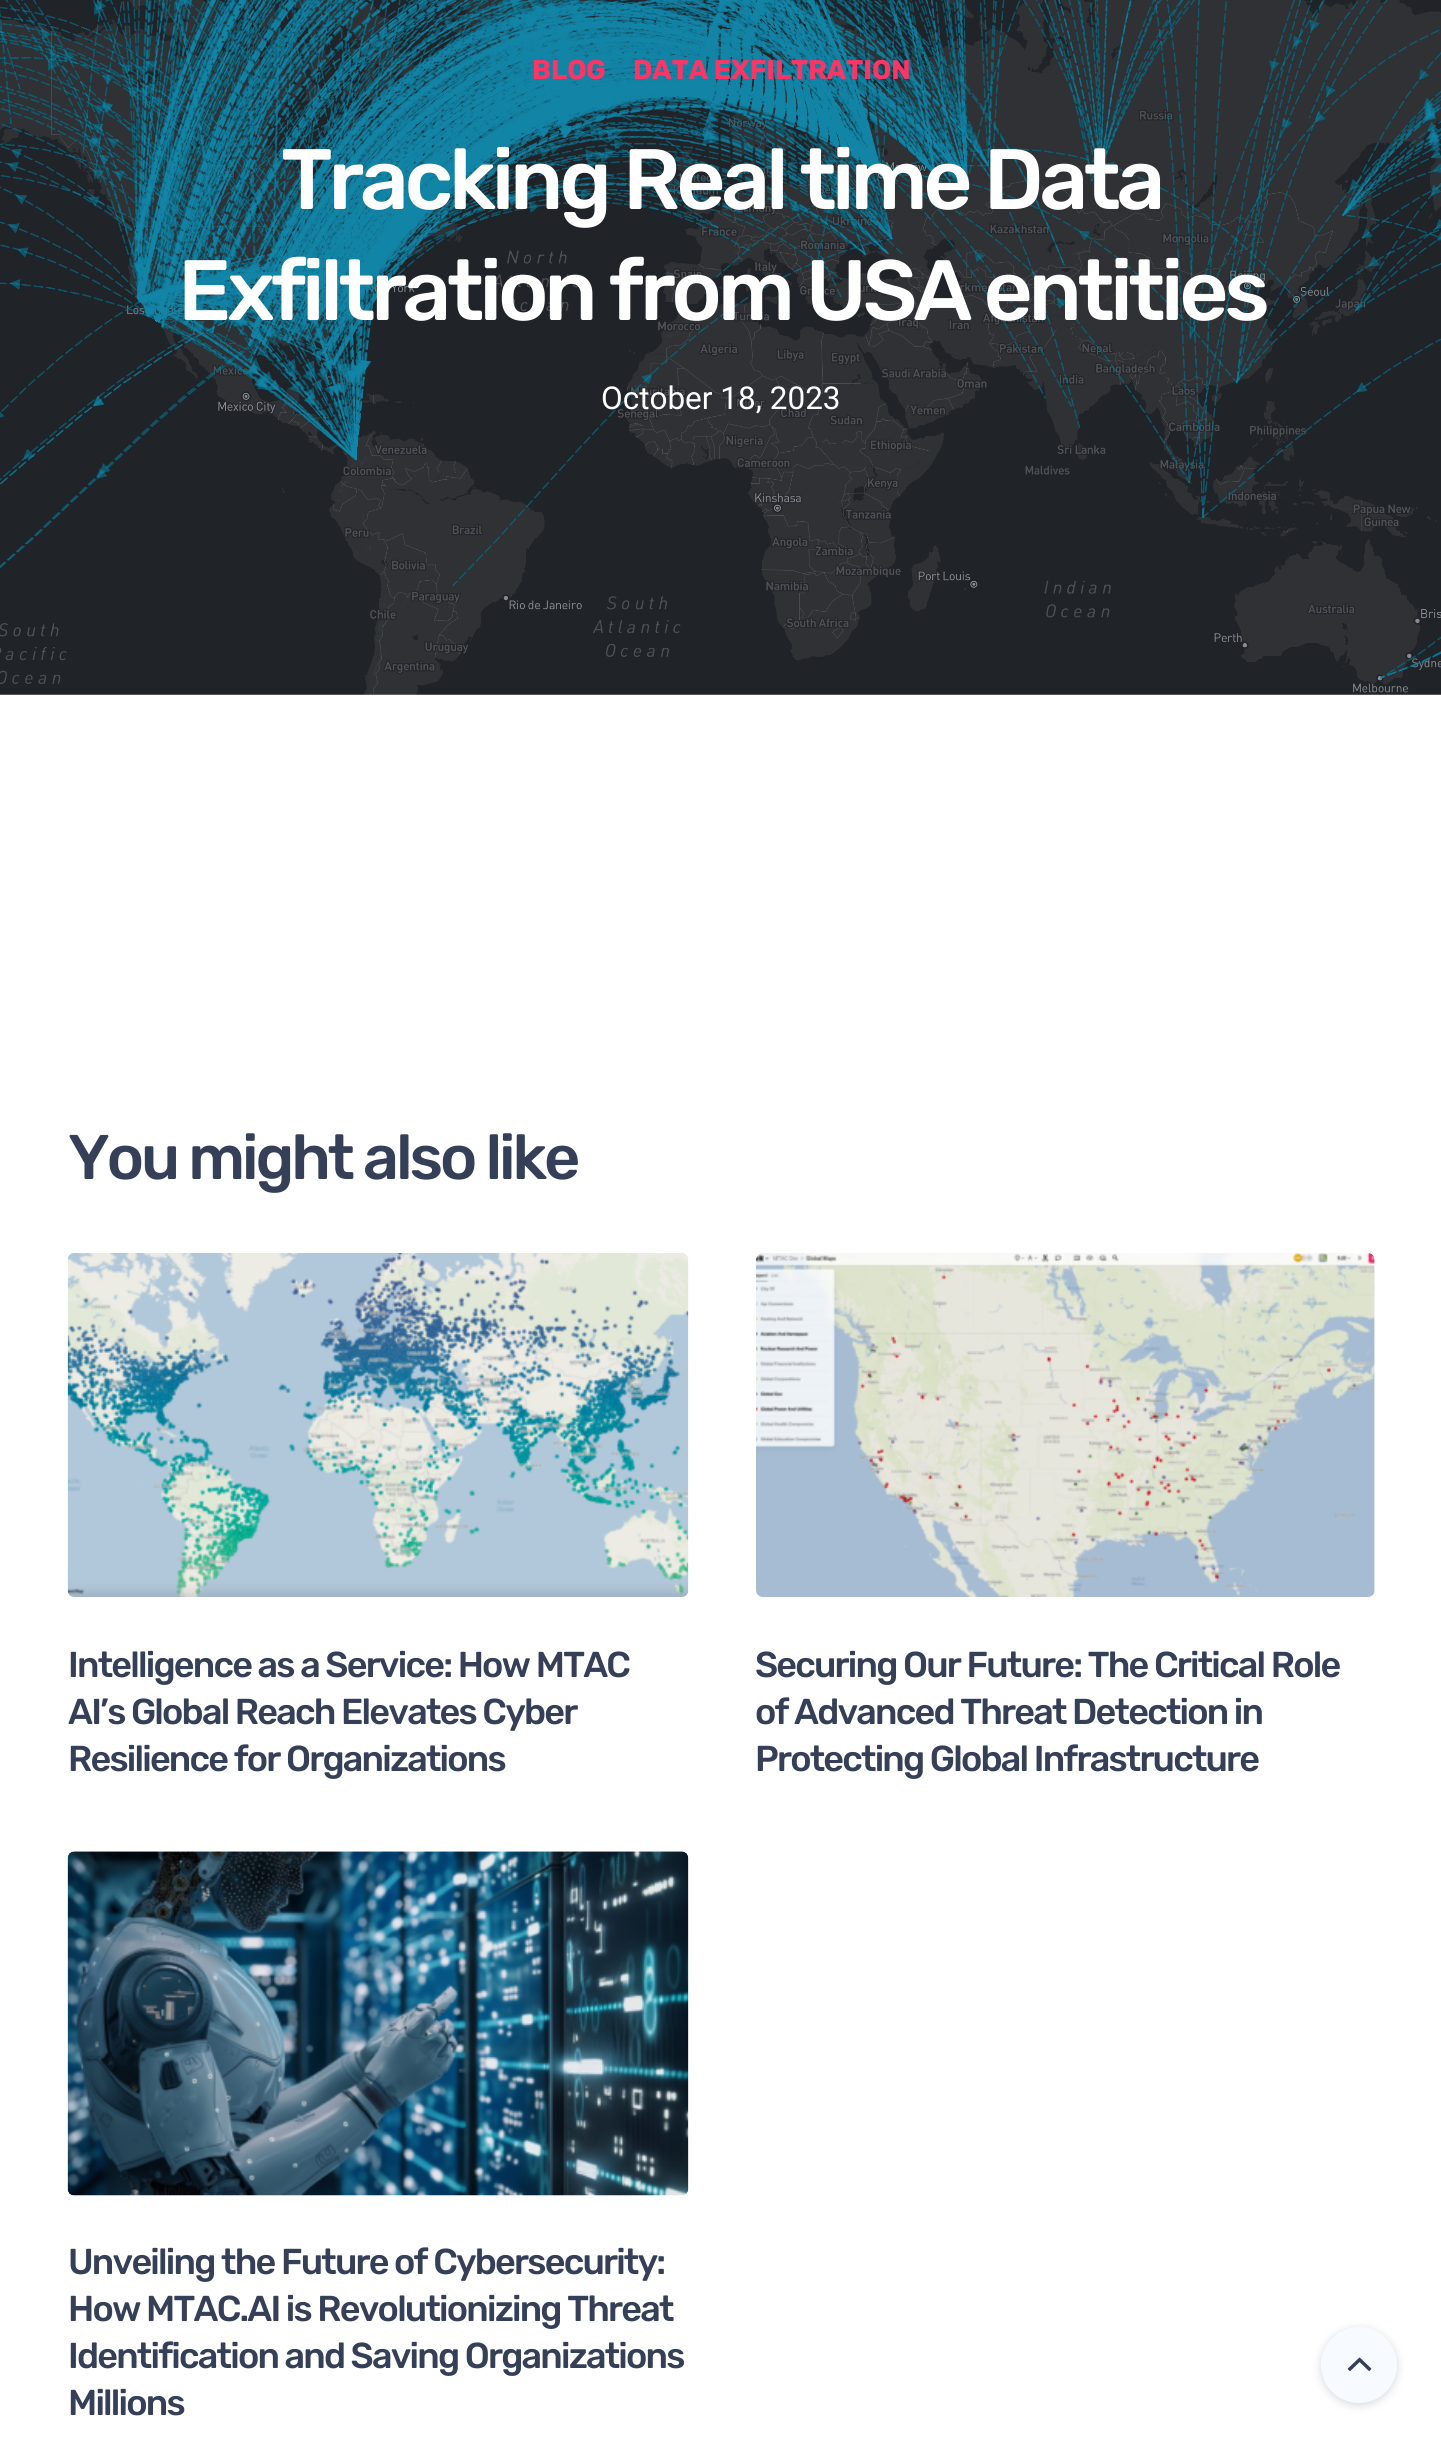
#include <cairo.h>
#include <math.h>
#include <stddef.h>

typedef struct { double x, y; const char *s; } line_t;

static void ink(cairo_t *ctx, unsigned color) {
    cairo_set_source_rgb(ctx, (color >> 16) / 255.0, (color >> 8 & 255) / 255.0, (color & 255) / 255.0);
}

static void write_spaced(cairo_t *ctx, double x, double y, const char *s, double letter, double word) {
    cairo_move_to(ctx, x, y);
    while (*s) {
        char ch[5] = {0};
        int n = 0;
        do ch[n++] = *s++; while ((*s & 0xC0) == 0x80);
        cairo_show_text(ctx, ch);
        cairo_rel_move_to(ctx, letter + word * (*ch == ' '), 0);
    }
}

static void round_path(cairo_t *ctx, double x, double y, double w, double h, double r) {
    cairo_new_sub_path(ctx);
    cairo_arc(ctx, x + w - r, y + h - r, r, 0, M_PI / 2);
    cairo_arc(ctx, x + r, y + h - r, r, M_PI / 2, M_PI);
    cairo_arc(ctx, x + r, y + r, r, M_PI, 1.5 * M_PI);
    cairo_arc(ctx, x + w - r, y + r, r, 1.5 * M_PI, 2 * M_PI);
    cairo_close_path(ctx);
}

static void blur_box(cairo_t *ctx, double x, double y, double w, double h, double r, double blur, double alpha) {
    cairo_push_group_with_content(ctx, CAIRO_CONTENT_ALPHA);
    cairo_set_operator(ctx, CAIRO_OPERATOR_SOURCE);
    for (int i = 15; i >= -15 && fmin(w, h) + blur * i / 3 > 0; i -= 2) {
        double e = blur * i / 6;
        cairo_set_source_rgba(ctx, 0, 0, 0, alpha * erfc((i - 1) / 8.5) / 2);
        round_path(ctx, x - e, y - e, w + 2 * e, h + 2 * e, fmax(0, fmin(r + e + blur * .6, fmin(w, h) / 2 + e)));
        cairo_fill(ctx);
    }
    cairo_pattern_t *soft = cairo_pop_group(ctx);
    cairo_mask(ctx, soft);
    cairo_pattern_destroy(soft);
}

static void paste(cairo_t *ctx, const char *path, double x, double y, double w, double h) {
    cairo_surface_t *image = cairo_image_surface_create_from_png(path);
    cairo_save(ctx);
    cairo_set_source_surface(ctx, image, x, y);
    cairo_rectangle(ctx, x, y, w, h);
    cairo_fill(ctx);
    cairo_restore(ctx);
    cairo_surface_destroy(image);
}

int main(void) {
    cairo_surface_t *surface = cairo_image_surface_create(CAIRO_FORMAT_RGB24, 1441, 2448);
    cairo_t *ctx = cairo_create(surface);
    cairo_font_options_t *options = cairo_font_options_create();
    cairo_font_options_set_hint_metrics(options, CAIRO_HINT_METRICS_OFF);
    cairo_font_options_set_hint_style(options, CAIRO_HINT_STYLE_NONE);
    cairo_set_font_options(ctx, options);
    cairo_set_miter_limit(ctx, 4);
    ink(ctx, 0xFFFFFF);
    cairo_paint(ctx);
    paste(ctx, "media/1.png", 0, 0, 1441, 695);
    cairo_select_font_face(ctx, "Rubik", CAIRO_FONT_SLANT_NORMAL, CAIRO_FONT_WEIGHT_BOLD);
    cairo_set_font_size(ctx, 27);
    ink(ctx, 0xFF3465);
    cairo_move_to(ctx, 532, 79);
    cairo_show_text(ctx, "BLOG");
    cairo_move_to(ctx, 633, 79);
    cairo_show_text(ctx, "DATA EXFILTRATION");
    cairo_select_font_face(ctx, "Rubik Medium", CAIRO_FONT_SLANT_NORMAL, CAIRO_FONT_WEIGHT_NORMAL);
    cairo_set_font_size(ctx, 85.5);
    ink(ctx, 0xFFFFFF);
    write_spaced(ctx, 281, 209, "Tracking Real time Data", -4.25, 0);
    write_spaced(ctx, 178, 320, "Exfiltration from USA entities", -4.25, 0);
    cairo_select_font_face(ctx, "Roboto", CAIRO_FONT_SLANT_NORMAL, CAIRO_FONT_WEIGHT_NORMAL);
    cairo_set_font_size(ctx, 31.5);
    cairo_move_to(ctx, 601, 409);
    cairo_show_text(ctx, "October 18, 2023");
    cairo_select_font_face(ctx, "Rubik Medium", CAIRO_FONT_SLANT_NORMAL, CAIRO_FONT_WEIGHT_NORMAL);
    cairo_set_font_size(ctx, 63);
    ink(ctx, 0x353F58);
    write_spaced(ctx, 68, 1179, "You might also like", -3.1, 0);
    paste(ctx, "media/2.png", 67, 1253, 622, 344);
    cairo_set_font_size(ctx, 36);
    {
        static const line_t items[] = {
            {68, 1677, "Intelligence as a Service: How MTAC"},
            {68, 1724, "AI’s Global Reach Elevates Cyber"},
            {68, 1771, "Resilience for Organizations"},
        };
        for (size_t i = 0; i < sizeof items / sizeof *items; i++) {
            write_spaced(ctx, items[i].x, items[i].y, items[i].s, -1.8, 0);
        }
    }
    paste(ctx, "media/3.png", 756, 1253, 619, 344);
    {
        static const line_t items[] = {
            {755, 1677, "Securing Our Future: The Critical Role"},
            {755, 1724, "of Advanced Threat Detection in"},
            {755, 1771, "Protecting Global Infrastructure"},
        };
        for (size_t i = 0; i < sizeof items / sizeof *items; i++) {
            write_spaced(ctx, items[i].x, items[i].y, items[i].s, -1.8, 0);
        }
    }
    paste(ctx, "media/4.png", 67, 1851, 622, 345);
    {
        static const line_t items[] = {
            {68, 2274, "Unveiling the Future of Cybersecurity:"},
            {68, 2321, "How MTAC.AI is Revolutionizing Threat"},
            {68, 2368, "Identification and Saving Organizations"},
            {68, 2415, "Millions"},
        };
        for (size_t i = 0; i < sizeof items / sizeof *items; i++) {
            write_spaced(ctx, items[i].x, items[i].y, items[i].s, -1.8, 0);
        }
    }
    ink(ctx, 0x9AA1AB);
    blur_box(ctx, 1321, 2329, 76, 76, 38, 4.5, 0.4);
    ink(ctx, 0xF7FBFF);
    cairo_arc(ctx, 1359, 2365, 38, 0, 2 * M_PI);
    cairo_fill(ctx);
    paste(ctx, "media/5.png", 1347, 2357, 25, 14);
    cairo_surface_write_to_png(surface, "image.png");
    cairo_font_options_destroy(options);
    cairo_destroy(ctx);
    cairo_surface_destroy(surface);
    return 0;
}
